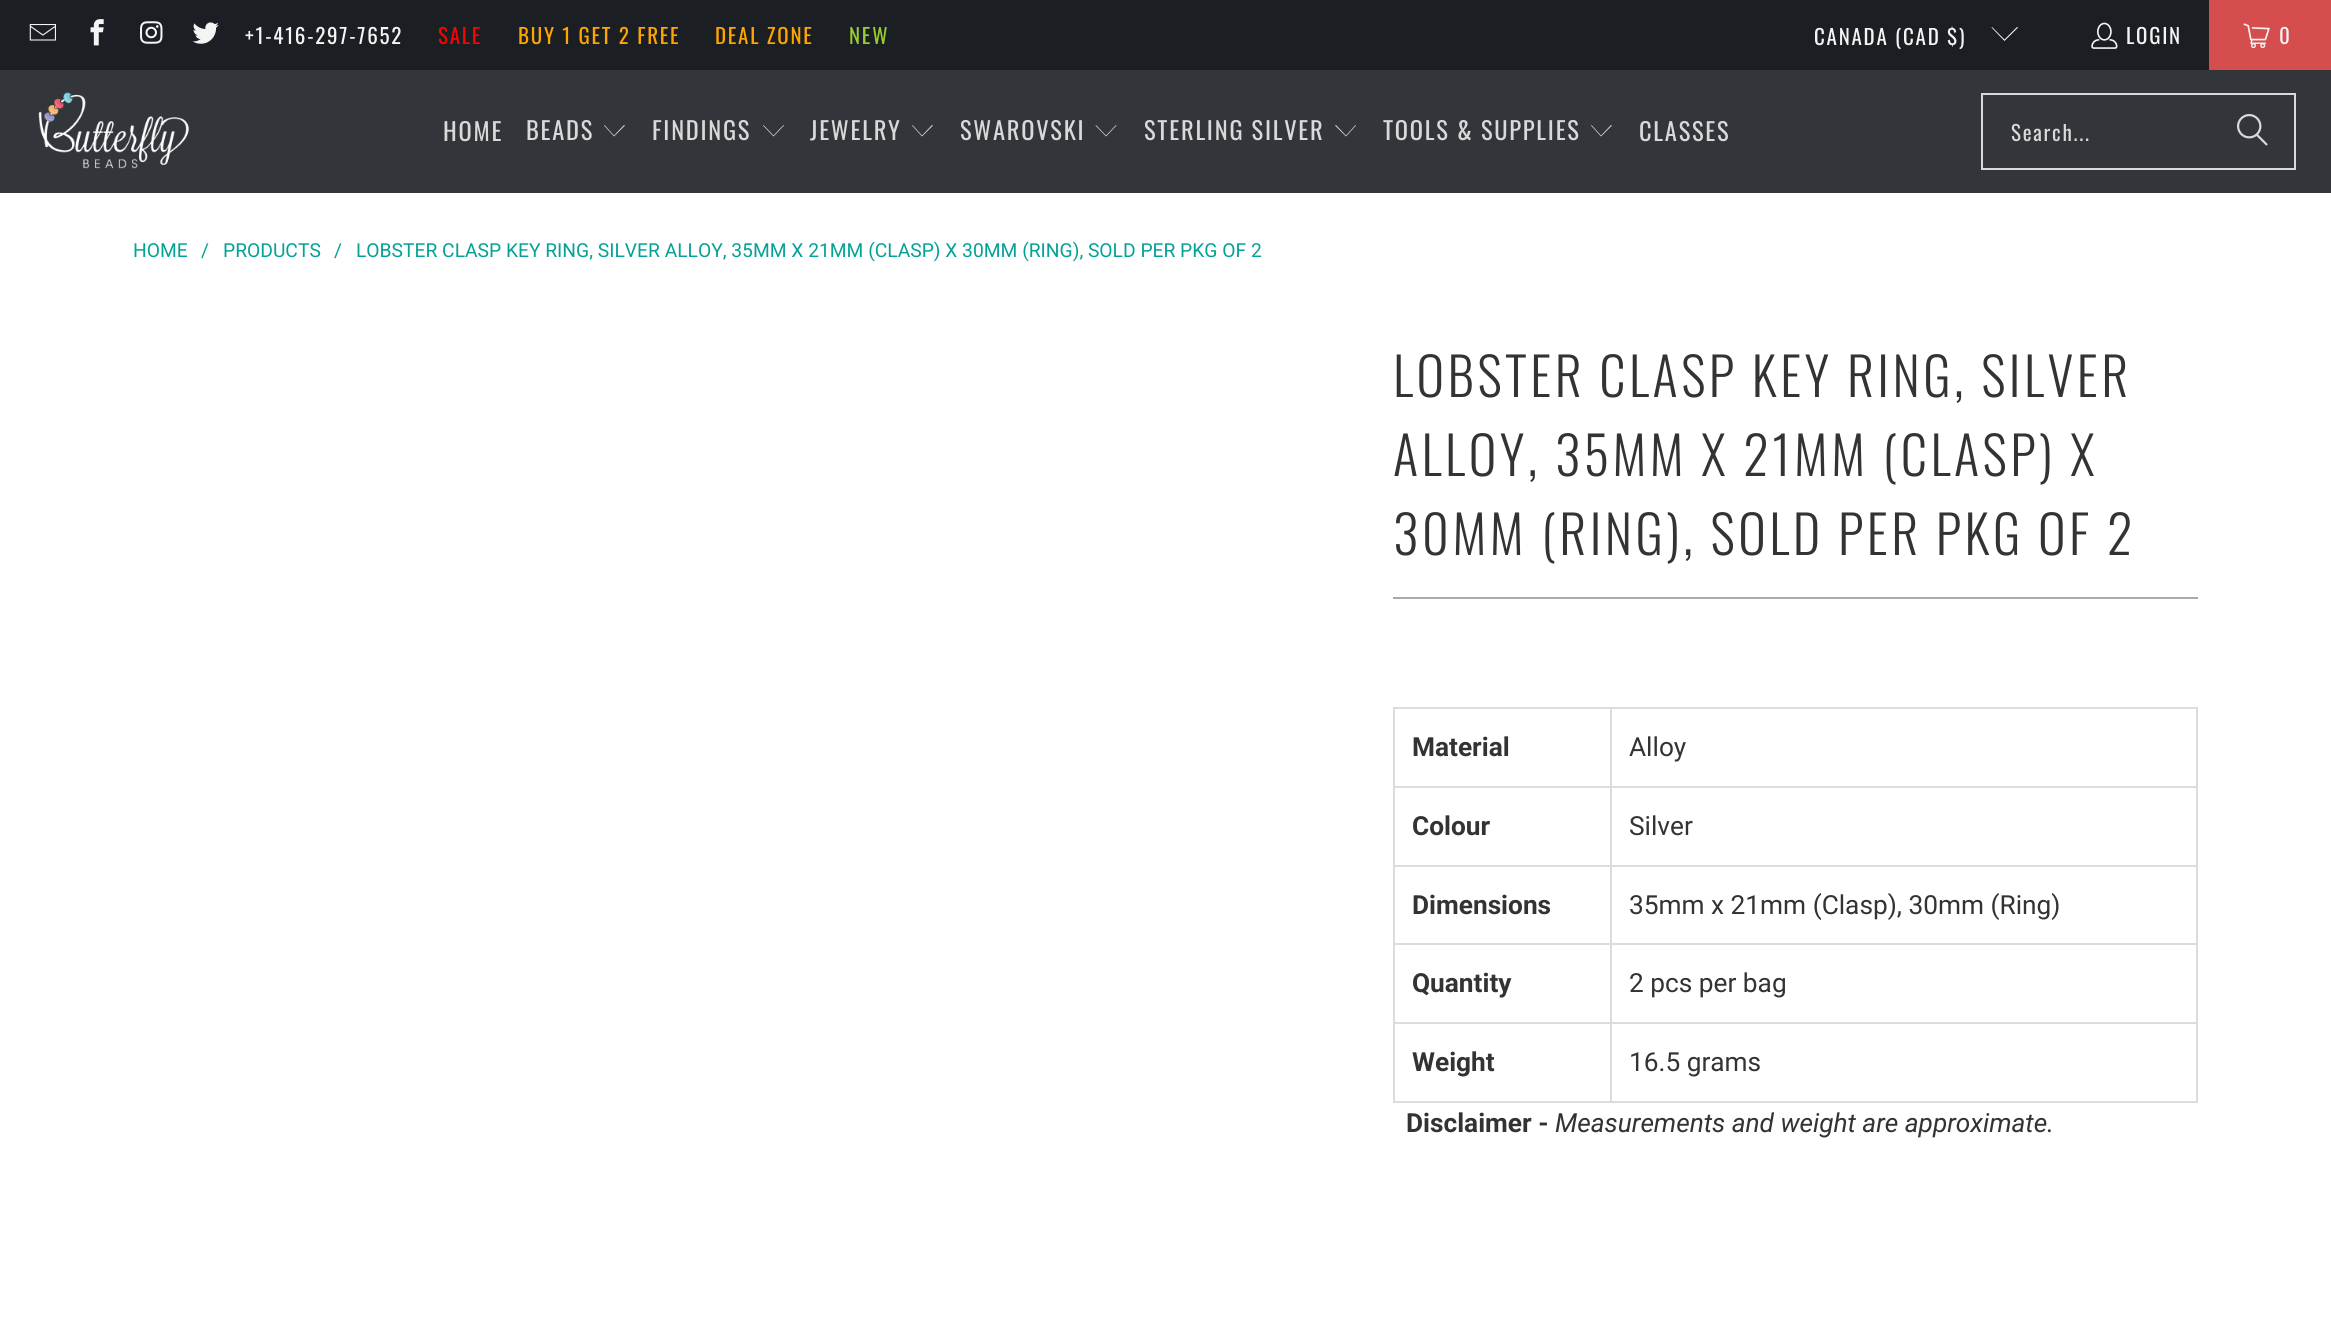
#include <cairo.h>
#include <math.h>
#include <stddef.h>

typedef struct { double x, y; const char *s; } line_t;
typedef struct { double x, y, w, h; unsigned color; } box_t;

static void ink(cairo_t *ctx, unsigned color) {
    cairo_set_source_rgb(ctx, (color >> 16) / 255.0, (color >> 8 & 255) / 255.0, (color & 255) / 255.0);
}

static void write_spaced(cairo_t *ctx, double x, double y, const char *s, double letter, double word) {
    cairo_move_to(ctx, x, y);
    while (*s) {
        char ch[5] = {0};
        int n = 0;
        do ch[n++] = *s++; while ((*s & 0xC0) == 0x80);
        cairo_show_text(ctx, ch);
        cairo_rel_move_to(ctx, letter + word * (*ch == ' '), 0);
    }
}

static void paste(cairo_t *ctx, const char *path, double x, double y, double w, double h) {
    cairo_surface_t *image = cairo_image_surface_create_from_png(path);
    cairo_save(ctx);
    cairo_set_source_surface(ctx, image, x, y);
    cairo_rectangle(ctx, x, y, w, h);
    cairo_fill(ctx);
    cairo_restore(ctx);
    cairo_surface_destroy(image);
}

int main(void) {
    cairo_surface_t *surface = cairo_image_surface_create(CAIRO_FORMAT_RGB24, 2331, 1337);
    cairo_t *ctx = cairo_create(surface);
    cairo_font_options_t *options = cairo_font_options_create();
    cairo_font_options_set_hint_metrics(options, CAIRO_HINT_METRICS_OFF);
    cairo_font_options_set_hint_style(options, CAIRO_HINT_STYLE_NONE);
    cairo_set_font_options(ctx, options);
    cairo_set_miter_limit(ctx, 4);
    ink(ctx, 0xFFFFFF);
    cairo_paint(ctx);
    ink(ctx, 0x1B1F23);
    cairo_rectangle(ctx, 0, 0, 2209, 70);
    cairo_fill(ctx);
    paste(ctx, "media/1.png", 29, 24, 27, 17);
    paste(ctx, "media/2.png", 90, 19, 14, 27);
    paste(ctx, "media/3.png", 140, 21, 23, 23);
    paste(ctx, "media/4.png", 192, 22, 27, 22);
    cairo_select_font_face(ctx, "Oswald", CAIRO_FONT_SLANT_NORMAL, CAIRO_FONT_WEIGHT_NORMAL);
    cairo_set_font_size(ctx, 21);
    ink(ctx, 0xF4F4F4);
    write_spaced(ctx, 245, 44, "+1-416-297-7652", 1.75, 0);
    ink(ctx, 0xFF0000);
    write_spaced(ctx, 438, 44, "SALE", 1.75, 0);
    ink(ctx, 0xFFA500);
    write_spaced(ctx, 518, 44, "BUY 1 GET 2 FREE", 1.75, 0);
    write_spaced(ctx, 715, 44, "DEAL ZONE", 1.75, 0);
    ink(ctx, 0x9ACD32);
    write_spaced(ctx, 849, 44, "NEW", 1.75, 0);
    ink(ctx, 0xF4F4F4);
    write_spaced(ctx, 1814, 45, "CANADA (CAD $)", 1.75, 0);
    cairo_new_path(ctx);
    cairo_move_to(ctx, 2004.5, 41);
    cairo_line_to(ctx, 1991.5, 27.5);
    cairo_line_to(ctx, 1992, 27);
    cairo_line_to(ctx, 2004.5, 39.5);
    cairo_line_to(ctx, 2017, 27);
    cairo_line_to(ctx, 2018, 27.5);
    cairo_close_path(ctx);
    cairo_fill(ctx);
    paste(ctx, "media/5.png", 2091, 22, 27, 27);
    write_spaced(ctx, 2126, 44, "LOGIN", 1.75, 0);
    ink(ctx, 0xD54D4D);
    cairo_rectangle(ctx, 2209, 0, 122, 70);
    cairo_fill(ctx);
    paste(ctx, "media/6.png", 2243, 23, 27, 26);
    ink(ctx, 0xF4F4F4);
    write_spaced(ctx, 2279, 44, "0", 1.75, 0);
    ink(ctx, 0x323539);
    cairo_rectangle(ctx, 0, 70, 2331, 123);
    cairo_fill(ctx);
    paste(ctx, "media/7.png", 38, 92, 152, 77);
    cairo_set_font_size(ctx, 24.5);
    ink(ctx, 0xD9D9D9);
    write_spaced(ctx, 443, 141, "HOME", 1.75, 0);
    write_spaced(ctx, 526, 140, "BEADS", 1.75, 0);
    cairo_new_path(ctx);
    cairo_move_to(ctx, 614, 136.5);
    cairo_line_to(ctx, 604, 125.5);
    cairo_line_to(ctx, 604.5, 125);
    cairo_line_to(ctx, 614, 135.5);
    cairo_line_to(ctx, 624, 125);
    cairo_line_to(ctx, 625, 125.5);
    cairo_close_path(ctx);
    cairo_fill(ctx);
    write_spaced(ctx, 652, 140, "FINDINGS", 1.75, 0);
    cairo_new_path(ctx);
    cairo_move_to(ctx, 773.5, 136.5);
    cairo_line_to(ctx, 763, 125.5);
    cairo_line_to(ctx, 763.5, 125);
    cairo_line_to(ctx, 773.5, 135.5);
    cairo_line_to(ctx, 783.5, 125);
    cairo_line_to(ctx, 784, 125.5);
    cairo_close_path(ctx);
    cairo_fill(ctx);
    write_spaced(ctx, 810, 140, "JEWELRY", 1.75, 0);
    cairo_new_path(ctx);
    cairo_move_to(ctx, 922, 136.5);
    cairo_line_to(ctx, 912, 125.5);
    cairo_line_to(ctx, 912.5, 125);
    cairo_line_to(ctx, 922, 135.5);
    cairo_line_to(ctx, 932, 125);
    cairo_line_to(ctx, 933, 125.5);
    cairo_close_path(ctx);
    cairo_fill(ctx);
    write_spaced(ctx, 960, 140, "SWAROVSKI", 1.75, 0);
    cairo_new_path(ctx);
    cairo_move_to(ctx, 1106, 136.5);
    cairo_line_to(ctx, 1095.5, 125.5);
    cairo_line_to(ctx, 1096, 125);
    cairo_line_to(ctx, 1106, 135.5);
    cairo_line_to(ctx, 1116, 125);
    cairo_line_to(ctx, 1116.5, 125.5);
    cairo_close_path(ctx);
    cairo_fill(ctx);
    write_spaced(ctx, 1144, 140, "STERLING SILVER", 1.75, 0);
    cairo_new_path(ctx);
    cairo_move_to(ctx, 1346, 136.5);
    cairo_line_to(ctx, 1335, 125.5);
    cairo_line_to(ctx, 1336, 125);
    cairo_line_to(ctx, 1346, 135.5);
    cairo_line_to(ctx, 1355.5, 125);
    cairo_line_to(ctx, 1356, 125.5);
    cairo_close_path(ctx);
    cairo_fill(ctx);
    write_spaced(ctx, 1383, 140, "TOOLS & SUPPLIES", 1.75, 0);
    cairo_new_path(ctx);
    cairo_move_to(ctx, 1601, 136.5);
    cairo_line_to(ctx, 1591, 125.5);
    cairo_line_to(ctx, 1591.5, 125);
    cairo_line_to(ctx, 1601, 135.5);
    cairo_line_to(ctx, 1611, 125);
    cairo_line_to(ctx, 1612, 125.5);
    cairo_close_path(ctx);
    cairo_fill(ctx);
    write_spaced(ctx, 1639, 141, "CLASSES", 1.75, 0);
    cairo_rectangle(ctx, 1982, 94, 313, 75);
    cairo_stroke(ctx);
    cairo_set_font_size(ctx, 21);
    write_spaced(ctx, 2011, 141, "Search...", 1.75, 0);
    paste(ctx, "media/8.png", 2237, 114, 31, 32);
    cairo_select_font_face(ctx, "Roboto", CAIRO_FONT_SLANT_NORMAL, CAIRO_FONT_WEIGHT_NORMAL);
    cairo_set_font_size(ctx, 19.25);
    ink(ctx, 0x03A196);
    {
        static const line_t items[] = {
            {133, 257, "HOME"},
            {201, 257, "/"},
            {223, 257, "PRODUCTS"},
            {334, 257, "/"},
            {356, 257, "LOBSTER CLASP KEY RING, SILVER ALLOY, 35MM X 21MM (CLASP) X 30MM (RING), SOLD PER PKG OF 2"},
        };
        for (size_t i = 0; i < sizeof items / sizeof *items; i++) {
            cairo_move_to(ctx, items[i].x, items[i].y);
            cairo_show_text(ctx, items[i].s);
        }
    }
    cairo_select_font_face(ctx, "Oswald Light", CAIRO_FONT_SLANT_NORMAL, CAIRO_FONT_WEIGHT_NORMAL);
    cairo_set_font_size(ctx, 52.5);
    ink(ctx, 0x333333);
    {
        static const line_t items[] = {
            {1393, 397, "LOBSTER CLASP KEY RING, SILVER"},
            {1393, 476, "ALLOY, 35MM X 21MM (CLASP) X"},
            {1393, 555, "30MM (RING), SOLD PER PKG OF 2"},
        };
        for (size_t i = 0; i < sizeof items / sizeof *items; i++) {
            write_spaced(ctx, items[i].x, items[i].y, items[i].s, 3.5, 0);
        }
    }
    {
        static const box_t items[] = {
            {1393, 597, 805, 2, 0xAAAAAA},
            {1393, 707, 805, 2, 0xDCDCDC},
            {1393, 786, 805, 2, 0xDCDCDC},
        };
        for (size_t i = 0; i < sizeof items / sizeof *items; i++) {
            ink(ctx, items[i].color);
            cairo_rectangle(ctx, items[i].x, items[i].y, items[i].w, items[i].h);
            cairo_fill(ctx);
        }
    }
    cairo_select_font_face(ctx, "Roboto", CAIRO_FONT_SLANT_NORMAL, CAIRO_FONT_WEIGHT_BOLD);
    cairo_set_font_size(ctx, 26.25);
    ink(ctx, 0x333333);
    cairo_move_to(ctx, 1412, 756);
    cairo_show_text(ctx, "Material");
    cairo_select_font_face(ctx, "Roboto", CAIRO_FONT_SLANT_NORMAL, CAIRO_FONT_WEIGHT_NORMAL);
    cairo_move_to(ctx, 1629, 756);
    cairo_show_text(ctx, "Alloy");
    ink(ctx, 0xDCDCDC);
    cairo_rectangle(ctx, 1393, 865, 805, 2);
    cairo_fill(ctx);
    cairo_select_font_face(ctx, "Roboto", CAIRO_FONT_SLANT_NORMAL, CAIRO_FONT_WEIGHT_BOLD);
    ink(ctx, 0x333333);
    cairo_move_to(ctx, 1412, 835);
    cairo_show_text(ctx, "Colour");
    cairo_select_font_face(ctx, "Roboto", CAIRO_FONT_SLANT_NORMAL, CAIRO_FONT_WEIGHT_NORMAL);
    cairo_move_to(ctx, 1629, 835);
    cairo_show_text(ctx, "Silver");
    ink(ctx, 0xDCDCDC);
    cairo_rectangle(ctx, 1393, 943, 805, 2);
    cairo_fill(ctx);
    cairo_select_font_face(ctx, "Roboto", CAIRO_FONT_SLANT_NORMAL, CAIRO_FONT_WEIGHT_BOLD);
    ink(ctx, 0x333333);
    cairo_move_to(ctx, 1412, 914);
    cairo_show_text(ctx, "Dimensions");
    cairo_select_font_face(ctx, "Roboto", CAIRO_FONT_SLANT_NORMAL, CAIRO_FONT_WEIGHT_NORMAL);
    cairo_move_to(ctx, 1629, 914);
    cairo_show_text(ctx, "35mm x 21mm (Clasp), 30mm (Ring)");
    ink(ctx, 0xDCDCDC);
    cairo_rectangle(ctx, 1393, 1022, 805, 2);
    cairo_fill(ctx);
    cairo_select_font_face(ctx, "Roboto", CAIRO_FONT_SLANT_NORMAL, CAIRO_FONT_WEIGHT_BOLD);
    ink(ctx, 0x333333);
    cairo_move_to(ctx, 1412, 992);
    cairo_show_text(ctx, "Quantity");
    cairo_select_font_face(ctx, "Roboto", CAIRO_FONT_SLANT_NORMAL, CAIRO_FONT_WEIGHT_NORMAL);
    cairo_move_to(ctx, 1629, 992);
    cairo_show_text(ctx, "2 pcs per bag");
    {
        static const box_t items[] = {
            {1393, 1101, 805, 2, 0xDCDCDC},
            {1610, 707, 2, 396, 0xDCDCDC},
            {1393, 707, 2, 396, 0xDCDCDC},
        };
        for (size_t i = 0; i < sizeof items / sizeof *items; i++) {
            ink(ctx, items[i].color);
            cairo_rectangle(ctx, items[i].x, items[i].y, items[i].w, items[i].h);
            cairo_fill(ctx);
        }
    }
    cairo_select_font_face(ctx, "Roboto", CAIRO_FONT_SLANT_NORMAL, CAIRO_FONT_WEIGHT_BOLD);
    ink(ctx, 0x333333);
    cairo_move_to(ctx, 1412, 1071);
    cairo_show_text(ctx, "Weight");
    ink(ctx, 0xDCDCDC);
    cairo_rectangle(ctx, 2196, 707, 2, 396);
    cairo_fill(ctx);
    cairo_select_font_face(ctx, "Roboto", CAIRO_FONT_SLANT_NORMAL, CAIRO_FONT_WEIGHT_NORMAL);
    ink(ctx, 0x333333);
    cairo_move_to(ctx, 1629, 1071);
    cairo_show_text(ctx, "16.5 grams");
    cairo_select_font_face(ctx, "Roboto", CAIRO_FONT_SLANT_NORMAL, CAIRO_FONT_WEIGHT_BOLD);
    cairo_move_to(ctx, 1406, 1132);
    cairo_show_text(ctx, "Disclaimer -");
    cairo_select_font_face(ctx, "Roboto", CAIRO_FONT_SLANT_ITALIC, CAIRO_FONT_WEIGHT_NORMAL);
    cairo_move_to(ctx, 1555, 1132);
    cairo_show_text(ctx, "Measurements and weight are approximate.");
    cairo_surface_write_to_png(surface, "image.png");
    cairo_font_options_destroy(options);
    cairo_destroy(ctx);
    cairo_surface_destroy(surface);
    return 0;
}
